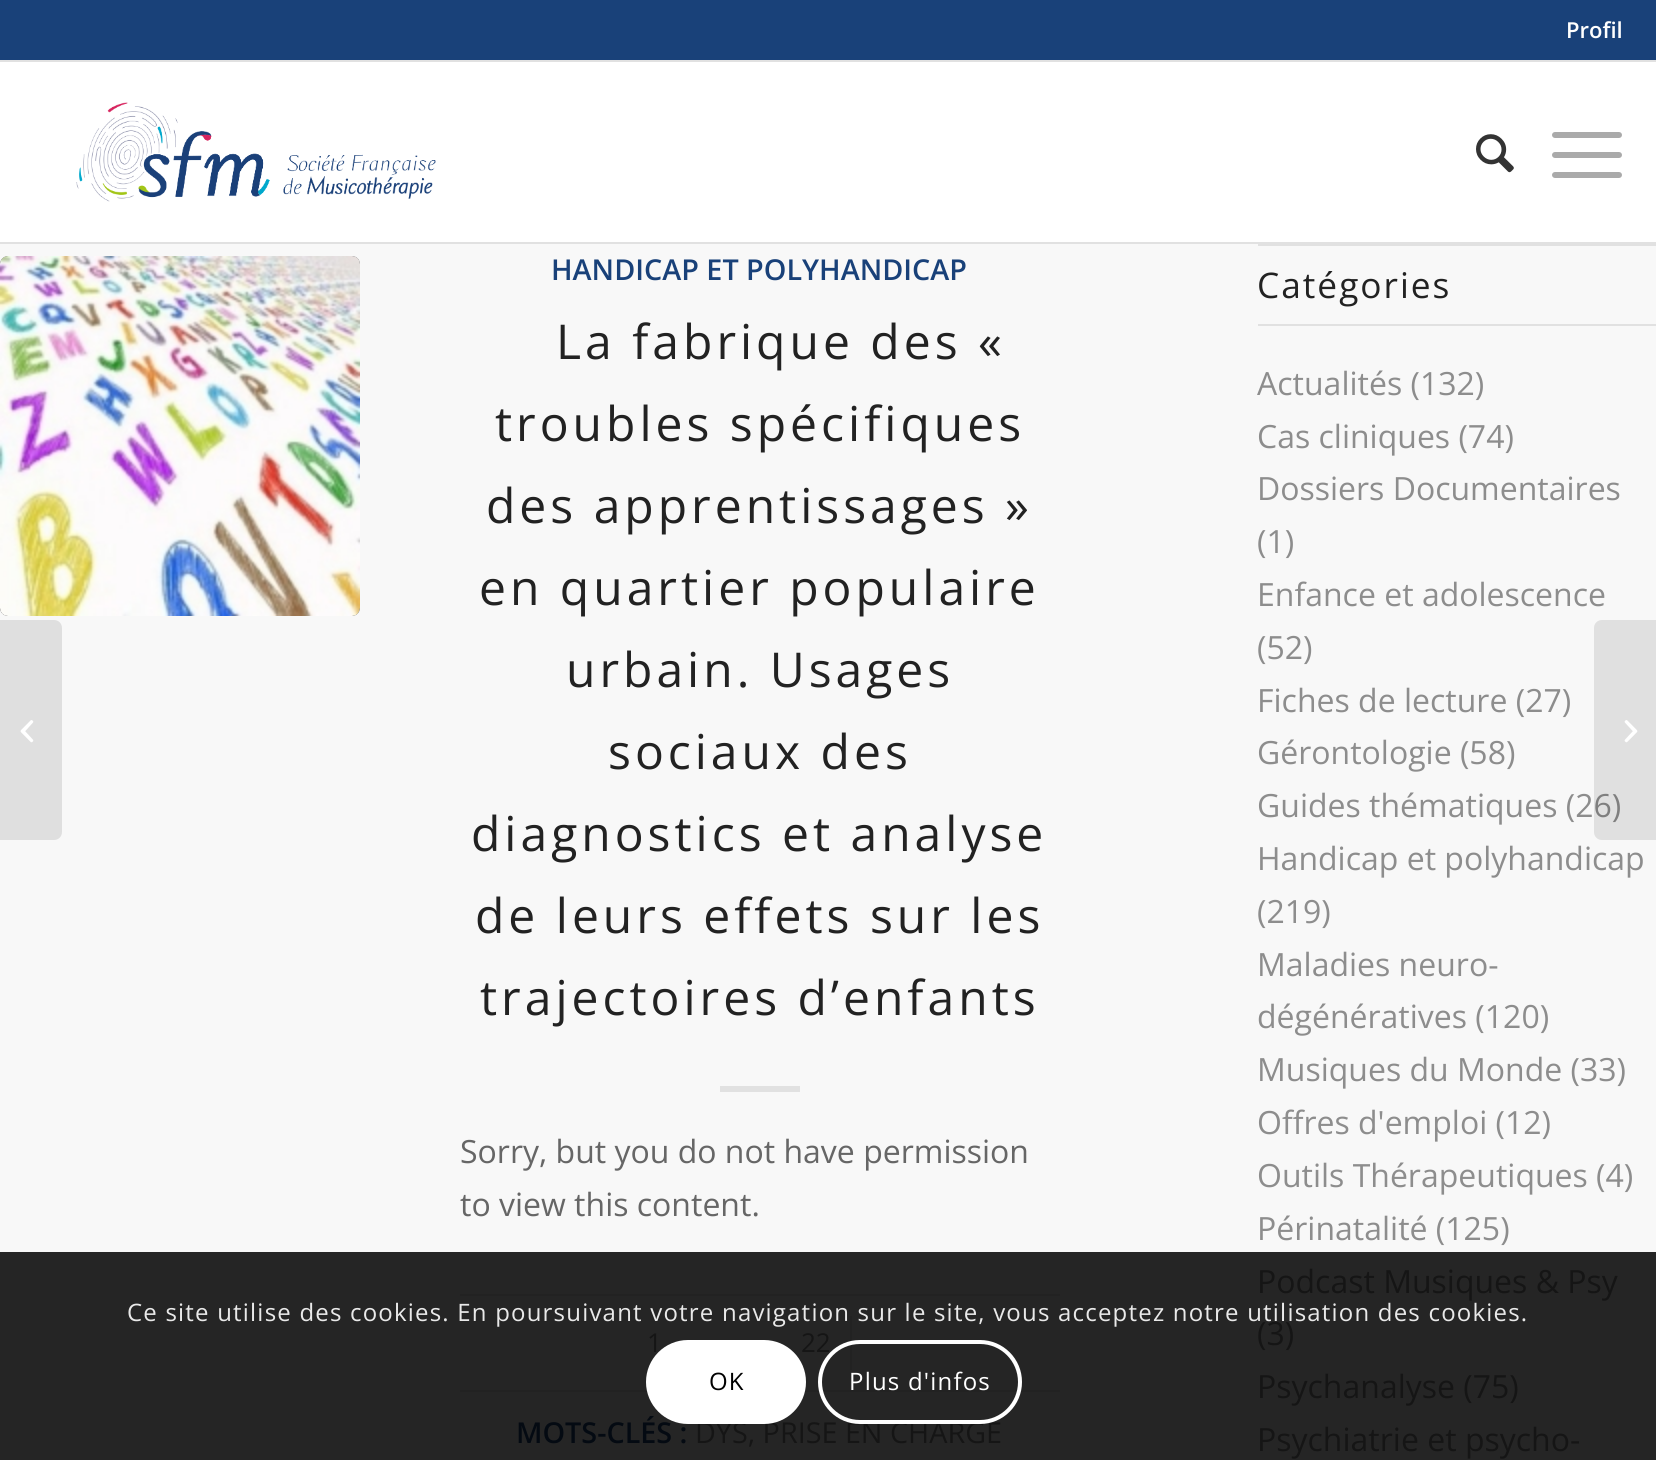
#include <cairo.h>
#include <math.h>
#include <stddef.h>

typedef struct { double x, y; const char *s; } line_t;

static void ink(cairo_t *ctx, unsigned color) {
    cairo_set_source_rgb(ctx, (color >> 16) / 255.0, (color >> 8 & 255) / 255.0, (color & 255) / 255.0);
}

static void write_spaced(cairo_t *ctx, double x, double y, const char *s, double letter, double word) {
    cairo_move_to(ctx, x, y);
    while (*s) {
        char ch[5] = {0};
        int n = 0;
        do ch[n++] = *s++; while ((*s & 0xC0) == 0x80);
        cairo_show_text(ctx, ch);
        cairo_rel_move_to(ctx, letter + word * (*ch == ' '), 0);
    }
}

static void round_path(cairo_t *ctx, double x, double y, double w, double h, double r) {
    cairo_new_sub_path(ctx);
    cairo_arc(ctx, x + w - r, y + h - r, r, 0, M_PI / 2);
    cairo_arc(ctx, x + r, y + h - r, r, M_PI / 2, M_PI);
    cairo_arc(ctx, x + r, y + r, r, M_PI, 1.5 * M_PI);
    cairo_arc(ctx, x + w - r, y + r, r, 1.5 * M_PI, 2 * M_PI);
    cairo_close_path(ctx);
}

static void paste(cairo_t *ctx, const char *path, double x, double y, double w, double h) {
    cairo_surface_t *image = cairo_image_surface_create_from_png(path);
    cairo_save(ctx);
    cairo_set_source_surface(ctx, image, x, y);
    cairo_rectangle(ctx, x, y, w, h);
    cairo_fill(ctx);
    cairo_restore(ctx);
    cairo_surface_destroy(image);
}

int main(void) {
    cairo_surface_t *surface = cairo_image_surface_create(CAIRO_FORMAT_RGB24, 1656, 1460);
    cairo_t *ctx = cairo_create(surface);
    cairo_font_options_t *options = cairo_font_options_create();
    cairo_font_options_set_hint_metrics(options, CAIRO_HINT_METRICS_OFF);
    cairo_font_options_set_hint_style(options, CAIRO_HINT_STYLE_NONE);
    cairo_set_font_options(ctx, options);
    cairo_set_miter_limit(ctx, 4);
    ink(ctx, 0xF8F8F8);
    cairo_paint(ctx);
    ink(ctx, 0x194179);
    cairo_rectangle(ctx, 0, 0, 1656, 60);
    cairo_fill(ctx);
    ink(ctx, 0xE1E1E1);
    cairo_rectangle(ctx, 0, 60, 1656, 2);
    cairo_fill(ctx);
    cairo_select_font_face(ctx, "Open Sans SemiBold", CAIRO_FONT_SLANT_NORMAL, CAIRO_FONT_WEIGHT_NORMAL);
    cairo_set_font_size(ctx, 22);
    ink(ctx, 0xFFFFFF);
    cairo_move_to(ctx, 1566, 38);
    cairo_show_text(ctx, "Profil");
    cairo_rectangle(ctx, 0, 62, 1656, 180);
    cairo_fill(ctx);
    ink(ctx, 0xE1E1E1);
    cairo_rectangle(ctx, 0, 242, 1656, 2);
    cairo_fill(ctx);
    paste(ctx, "media/1.png", 76, 102, 360, 100);
    paste(ctx, "media/2.png", 1476, 134, 38, 39);
    ink(ctx, 0xAAAAAA);
    round_path(ctx, 1552, 152, 70, 6, 3);
    cairo_fill(ctx);
    round_path(ctx, 1552, 132, 70, 6, 3);
    cairo_fill(ctx);
    round_path(ctx, 1552, 172, 70, 6, 3);
    cairo_fill(ctx);
    ink(ctx, 0xDFDFDF);
    cairo_new_path(ctx);
    cairo_move_to(ctx, 0, 620);
    cairo_line_to(ctx, 54, 620);
    cairo_curve_to(ctx, 58.5, 620, 62, 623.5, 62, 628);
    cairo_line_to(ctx, 62, 832);
    cairo_curve_to(ctx, 62, 836.5, 58.5, 840, 54, 840);
    cairo_line_to(ctx, 0, 840);
    cairo_close_path(ctx);
    cairo_fill(ctx);
    paste(ctx, "media/3.png", 20, 720, 14, 23);
    ink(ctx, 0x252525);
    cairo_rectangle(ctx, 0, 1252, 1656, 208);
    cairo_fill(ctx);
    ink(ctx, 0x8D8D8D);
    round_path(ctx, 0, 256, 360, 360, 8);
    cairo_fill(ctx);
    paste(ctx, "media/4.png", 0, 256, 360, 360);
    cairo_set_font_size(ctx, 28.75);
    ink(ctx, 0x194179);
    cairo_move_to(ctx, 551, 280);
    cairo_show_text(ctx, "HANDICAP ET POLYHANDICAP");
    cairo_select_font_face(ctx, "Open Sans", CAIRO_FONT_SLANT_NORMAL, CAIRO_FONT_WEIGHT_NORMAL);
    cairo_set_font_size(ctx, 48);
    ink(ctx, 0x222222);
    {
        static const line_t items[] = {
            {556, 359, "La fabrique des «"},
            {495, 441, "troubles spécifiques"},
            {486, 523, "des apprentissages »"},
            {479, 605, "en quartier populaire"},
            {566, 687, "urbain. Usages"},
            {608, 769, "sociaux des"},
            {471, 851, "diagnostics et analyse"},
            {475, 933, "de leurs effets sur les"},
            {480, 1015, "trajectoires d’enfants"},
        };
        for (size_t i = 0; i < sizeof items / sizeof *items; i++) {
            write_spaced(ctx, items[i].x, items[i].y, items[i].s, 4, 0);
        }
    }
    ink(ctx, 0xE1E1E1);
    cairo_rectangle(ctx, 720, 1086, 80, 6);
    cairo_fill(ctx);
    cairo_set_font_size(ctx, 32);
    ink(ctx, 0x666666);
    cairo_move_to(ctx, 460, 1163);
    cairo_show_text(ctx, "Sorry, but you do not have permission");
    cairo_move_to(ctx, 460, 1216);
    cairo_show_text(ctx, "to view this content.");
    ink(ctx, 0x222222);
    cairo_rectangle(ctx, 460, 1294, 600, 2);
    cairo_fill(ctx);
    cairo_rectangle(ctx, 460, 1390, 600, 2);
    cairo_fill(ctx);
    cairo_set_font_size(ctx, 26);
    ink(ctx, 0x151515);
    cairo_move_to(ctx, 647, 1352);
    cairo_show_text(ctx, "1");
    cairo_move_to(ctx, 801, 1352);
    cairo_show_text(ctx, "22");
    ink(ctx, 0x222222);
    cairo_rectangle(ctx, 850, 1316, 2, 54);
    cairo_fill(ctx);
    cairo_select_font_face(ctx, "Open Sans SemiBold", CAIRO_FONT_SLANT_NORMAL, CAIRO_FONT_WEIGHT_NORMAL);
    cairo_set_font_size(ctx, 28.75);
    ink(ctx, 0x040A12);
    cairo_move_to(ctx, 516, 1443);
    cairo_show_text(ctx, "MOTS-CLÉS :");
    cairo_select_font_face(ctx, "Open Sans", CAIRO_FONT_SLANT_NORMAL, CAIRO_FONT_WEIGHT_NORMAL);
    ink(ctx, 0x151515);
    cairo_move_to(ctx, 695, 1443);
    cairo_show_text(ctx, "DYS, PRISE EN CHARGE");
    ink(ctx, 0xE1E1E1);
    cairo_rectangle(ctx, 1258, 244, 398, 2);
    cairo_fill(ctx);
    cairo_rectangle(ctx, 1258, 324, 398, 2);
    cairo_fill(ctx);
    cairo_set_font_size(ctx, 35.25);
    ink(ctx, 0x222222);
    write_spaced(ctx, 1257, 298, "Catégories", 2, 0);
    cairo_set_font_size(ctx, 32);
    ink(ctx, 0x8D8D8D);
    {
        static const line_t items[] = {
            {1257, 395, "Actualités (132)"},
            {1257, 448, "Cas cliniques (74)"},
            {1257, 500, "Dossiers Documentaires"},
            {1257, 553, "(1)"},
            {1257, 606, "Enfance et adolescence"},
            {1257, 659, "(52)"},
            {1257, 712, "Fiches de lecture (27)"},
            {1257, 764, "Gérontologie (58)"},
            {1257, 817, "Guides thématiques (26)"},
            {1257, 870, "Handicap et polyhandicap"},
            {1257, 923, "(219)"},
            {1257, 976, "Maladies neuro-"},
            {1257, 1028, "dégénératives (120)"},
            {1257, 1081, "Musiques du Monde (33)"},
            {1257, 1134, "Offres d'emploi (12)"},
            {1257, 1187, "Outils Thérapeutiques (4)"},
            {1257, 1240, "Périnatalité (125)"},
        };
        for (size_t i = 0; i < sizeof items / sizeof *items; i++) {
            cairo_move_to(ctx, items[i].x, items[i].y);
            cairo_show_text(ctx, items[i].s);
        }
    }
    ink(ctx, 0x151515);
    {
        static const line_t items[] = {
            {1257, 1293, "Podcast Musiques & Psy"},
            {1257, 1345, "(3)"},
            {1257, 1398, "Psychanalyse (75)"},
            {1257, 1451, "Psychiatrie et psycho-"},
        };
        for (size_t i = 0; i < sizeof items / sizeof *items; i++) {
            cairo_move_to(ctx, items[i].x, items[i].y);
            cairo_show_text(ctx, items[i].s);
        }
    }
    cairo_set_source_rgba(ctx, 0, 0, 0, 0.1);
    cairo_new_path(ctx);
    cairo_move_to(ctx, 1602, 620);
    cairo_line_to(ctx, 1656, 620);
    cairo_line_to(ctx, 1656, 840);
    cairo_line_to(ctx, 1602, 840);
    cairo_curve_to(ctx, 1597.5, 840, 1594, 836.5, 1594, 832);
    cairo_line_to(ctx, 1594, 628);
    cairo_curve_to(ctx, 1594, 623.5, 1597.5, 620, 1602, 620);
    cairo_close_path(ctx);
    cairo_fill(ctx);
    paste(ctx, "media/5.png", 1624, 720, 14, 23);
    cairo_set_font_size(ctx, 24);
    ink(ctx, 0xE9E9E9);
    write_spaced(ctx, 127, 1321, "Ce site utilise des cookies. En poursuivant votre navigation sur le site, vous acceptez notre utilisation des cookies.", 1.2, 0);
    ink(ctx, 0xFFFFFF);
    round_path(ctx, 646, 1340, 160, 84, 42);
    cairo_fill(ctx);
    ink(ctx, 0x000000);
    write_spaced(ctx, 709, 1390, "OK", 1.2, 0);
    round_path(ctx, 820, 1342, 200, 80, 40);
    ink(ctx, 0xFFFFFF);
    cairo_set_line_width(ctx, 4);
    cairo_stroke(ctx);
    write_spaced(ctx, 849, 1390, "Plus d'infos", 1.2, 0);
    cairo_surface_write_to_png(surface, "image.png");
    cairo_font_options_destroy(options);
    cairo_destroy(ctx);
    cairo_surface_destroy(surface);
    return 0;
}
